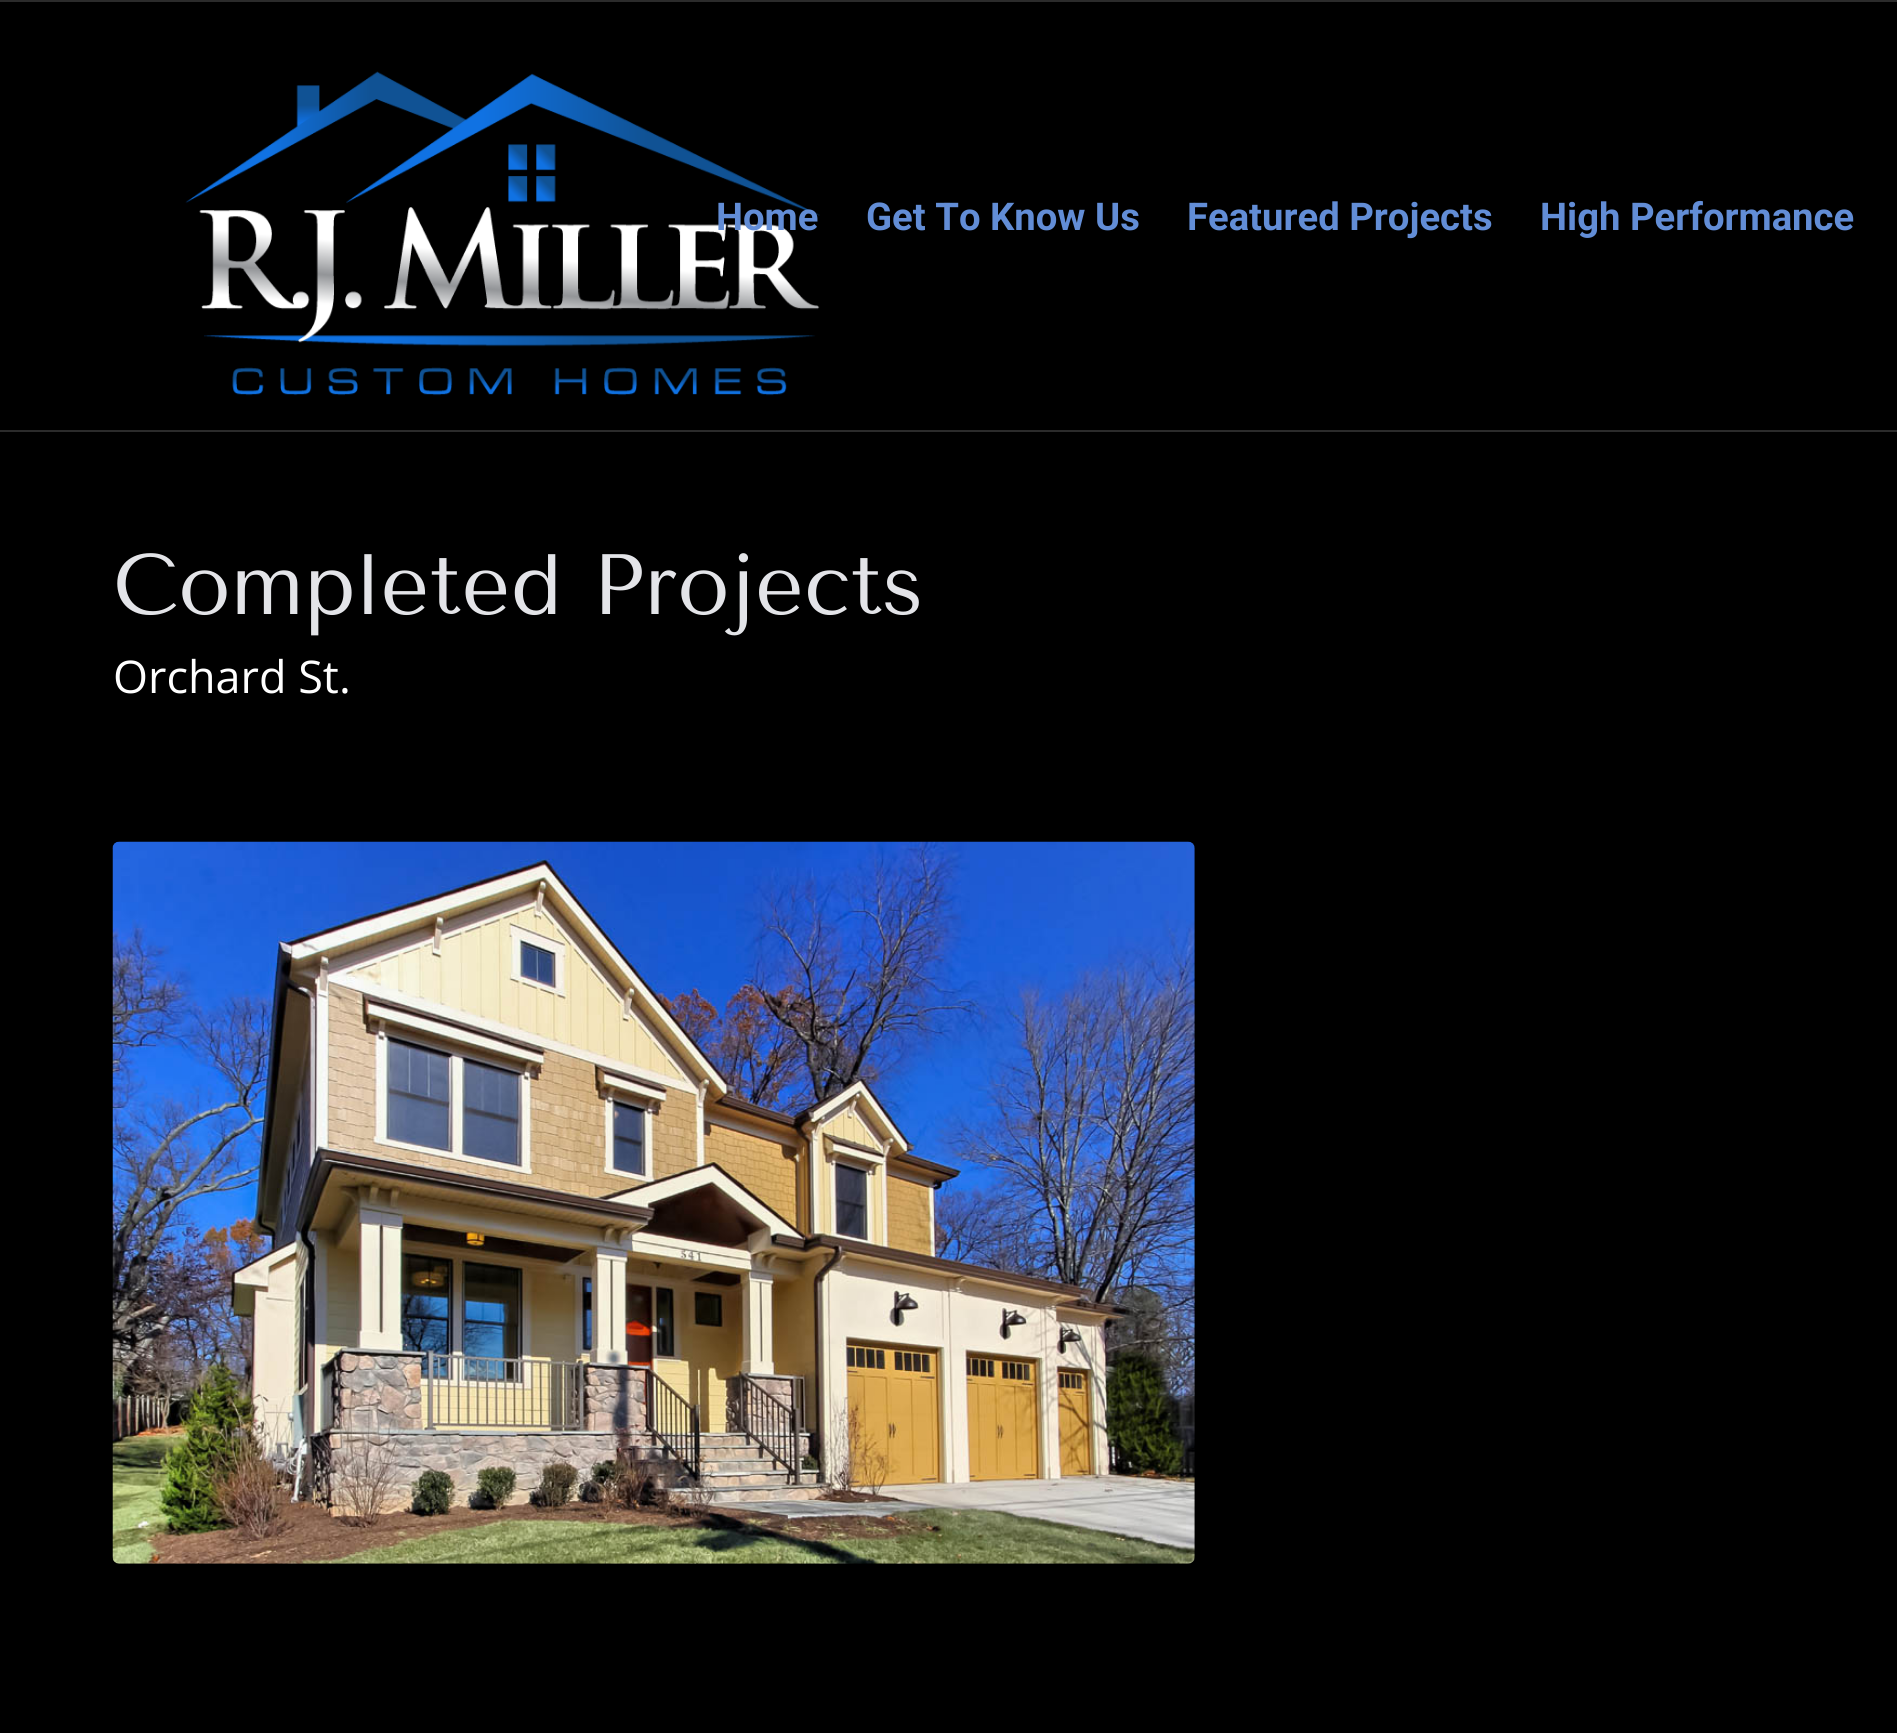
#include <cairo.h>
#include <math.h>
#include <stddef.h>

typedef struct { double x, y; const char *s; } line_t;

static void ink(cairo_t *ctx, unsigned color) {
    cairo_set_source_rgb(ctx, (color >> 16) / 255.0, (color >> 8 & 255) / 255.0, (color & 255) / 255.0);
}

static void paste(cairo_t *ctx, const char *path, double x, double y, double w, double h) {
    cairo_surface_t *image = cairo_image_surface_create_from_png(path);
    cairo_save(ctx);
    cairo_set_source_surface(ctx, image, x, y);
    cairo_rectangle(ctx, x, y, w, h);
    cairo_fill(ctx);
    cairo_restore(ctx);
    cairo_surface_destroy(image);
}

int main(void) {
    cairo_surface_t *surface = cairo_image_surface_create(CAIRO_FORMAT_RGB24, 1897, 1733);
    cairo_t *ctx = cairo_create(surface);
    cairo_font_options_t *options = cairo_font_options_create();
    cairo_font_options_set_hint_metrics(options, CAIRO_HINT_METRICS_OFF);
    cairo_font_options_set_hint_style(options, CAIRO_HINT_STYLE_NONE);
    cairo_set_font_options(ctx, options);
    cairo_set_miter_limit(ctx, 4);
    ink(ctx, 0x000000);
    cairo_paint(ctx);
    ink(ctx, 0x2B2B2B);
    cairo_rectangle(ctx, 0, 0, 1897, 2);
    cairo_fill(ctx);
    cairo_rectangle(ctx, 0, 430, 1897, 2);
    cairo_fill(ctx);
    paste(ctx, "media/1.png", 185, 71, 635, 325);
    cairo_select_font_face(ctx, "Roboto", CAIRO_FONT_SLANT_NORMAL, CAIRO_FONT_WEIGHT_BOLD);
    cairo_set_font_size(ctx, 38.25);
    ink(ctx, 0x628DD6);
    {
        static const line_t items[] = {
            {716, 230, "Home"},
            {866, 230, "Get To Know Us"},
            {1187, 230, "Featured Projects"},
            {1540, 230, "High Performance"},
        };
        for (size_t i = 0; i < sizeof items / sizeof *items; i++) {
            cairo_move_to(ctx, items[i].x, items[i].y);
            cairo_show_text(ctx, items[i].s);
        }
    }
    cairo_select_font_face(ctx, "Tenor Sans", CAIRO_FONT_SLANT_NORMAL, CAIRO_FONT_WEIGHT_NORMAL);
    cairo_set_font_size(ctx, 85.5);
    ink(ctx, 0xE3E4E8);
    cairo_move_to(ctx, 113, 614);
    cairo_show_text(ctx, "Completed Projects");
    cairo_select_font_face(ctx, "Open Sans", CAIRO_FONT_SLANT_NORMAL, CAIRO_FONT_WEIGHT_NORMAL);
    cairo_set_font_size(ctx, 45);
    ink(ctx, 0xFFFFFF);
    cairo_move_to(ctx, 113, 693);
    cairo_show_text(ctx, "Orchard St.");
    paste(ctx, "media/2.png", 112, 841, 1083, 723);
    cairo_surface_write_to_png(surface, "image.png");
    cairo_font_options_destroy(options);
    cairo_destroy(ctx);
    cairo_surface_destroy(surface);
    return 0;
}
